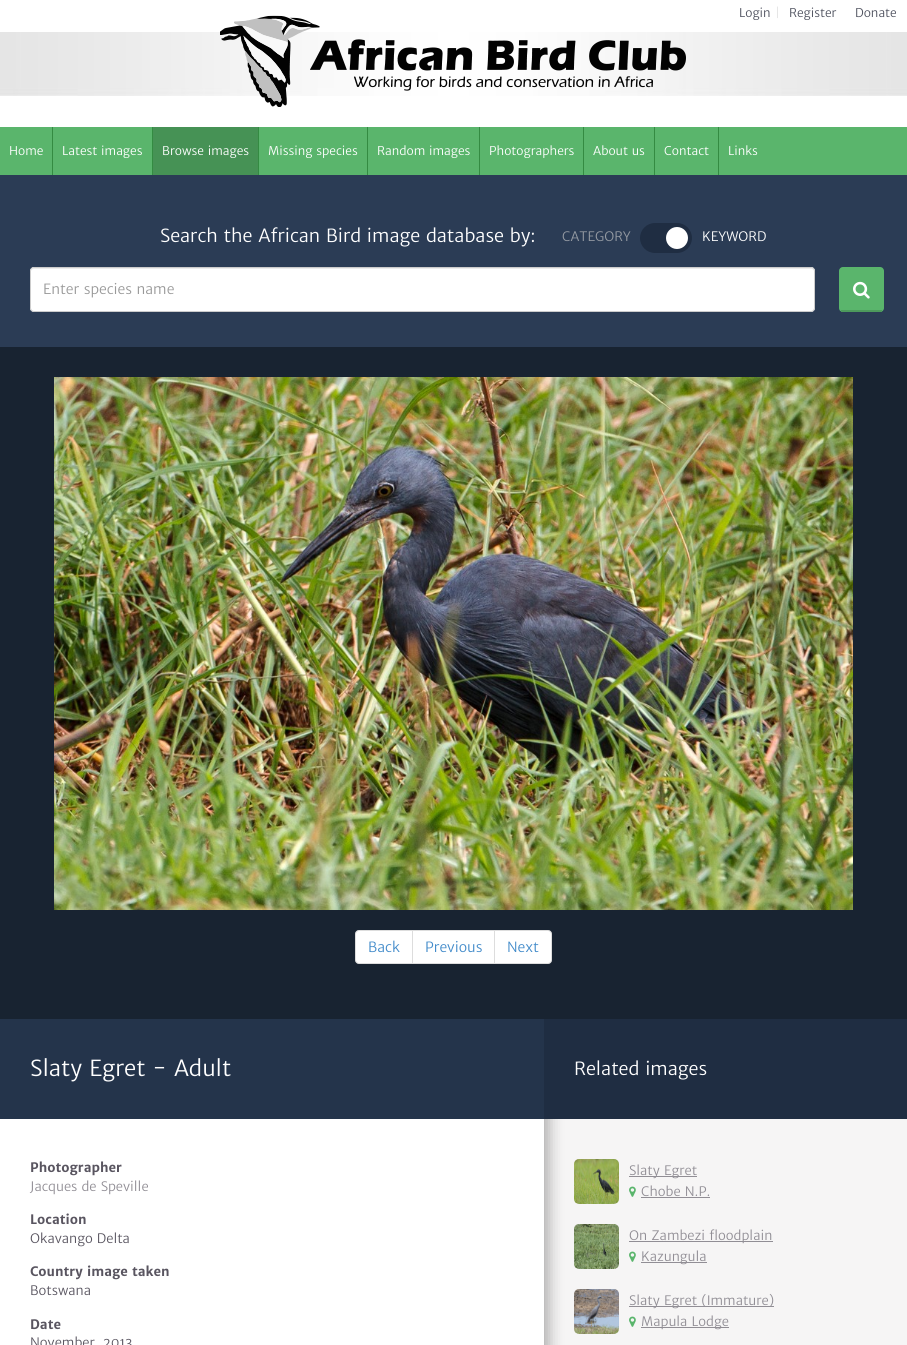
#include <cairo.h>
#include <math.h>
#include <stddef.h>


static void ink(cairo_t *ctx, unsigned color) {
    cairo_set_source_rgb(ctx, (color >> 16) / 255.0, (color >> 8 & 255) / 255.0, (color & 255) / 255.0);
}

static void round_path(cairo_t *ctx, double x, double y, double w, double h, double r) {
    cairo_new_sub_path(ctx);
    cairo_arc(ctx, x + w - r, y + h - r, r, 0, M_PI / 2);
    cairo_arc(ctx, x + r, y + h - r, r, M_PI / 2, M_PI);
    cairo_arc(ctx, x + r, y + r, r, M_PI, 1.5 * M_PI);
    cairo_arc(ctx, x + w - r, y + r, r, 1.5 * M_PI, 2 * M_PI);
    cairo_close_path(ctx);
}

static void blur_box(cairo_t *ctx, double x, double y, double w, double h, double r, double blur, double alpha) {
    cairo_push_group_with_content(ctx, CAIRO_CONTENT_ALPHA);
    cairo_set_operator(ctx, CAIRO_OPERATOR_SOURCE);
    for (int i = 15; i >= -15 && fmin(w, h) + blur * i / 3 > 0; i -= 2) {
        double e = blur * i / 6;
        cairo_set_source_rgba(ctx, 0, 0, 0, alpha * erfc((i - 1) / 8.5) / 2);
        round_path(ctx, x - e, y - e, w + 2 * e, h + 2 * e, fmax(0, fmin(r + e + blur * .6, fmin(w, h) / 2 + e)));
        cairo_fill(ctx);
    }
    cairo_pattern_t *soft = cairo_pop_group(ctx);
    cairo_mask(ctx, soft);
    cairo_pattern_destroy(soft);
}

static void paste(cairo_t *ctx, const char *path, double x, double y, double w, double h) {
    cairo_surface_t *image = cairo_image_surface_create_from_png(path);
    cairo_save(ctx);
    cairo_set_source_surface(ctx, image, x, y);
    cairo_rectangle(ctx, x, y, w, h);
    cairo_fill(ctx);
    cairo_restore(ctx);
    cairo_surface_destroy(image);
}

int main(void) {
    cairo_surface_t *surface = cairo_image_surface_create(CAIRO_FORMAT_RGB24, 907, 1345);
    cairo_t *ctx = cairo_create(surface);
    cairo_font_options_t *options = cairo_font_options_create();
    cairo_font_options_set_hint_metrics(options, CAIRO_HINT_METRICS_OFF);
    cairo_font_options_set_hint_style(options, CAIRO_HINT_STYLE_NONE);
    cairo_set_font_options(ctx, options);
    cairo_set_miter_limit(ctx, 4);
    ink(ctx, 0x182331);
    cairo_paint(ctx);
    paste(ctx, "media/1.png", 0, 0, 907, 127);
    cairo_select_font_face(ctx, "Merriweather Sans", CAIRO_FONT_SLANT_NORMAL, CAIRO_FONT_WEIGHT_NORMAL);
    cairo_set_font_size(ctx, 12);
    ink(ctx, 0x4E515E);
    cairo_move_to(ctx, 739, 17);
    cairo_show_text(ctx, "Login");
    ink(ctx, 0xE4E4E4);
    cairo_move_to(ctx, 775, 17);
    cairo_show_text(ctx, "|");
    ink(ctx, 0x4E515E);
    cairo_move_to(ctx, 789, 17);
    cairo_show_text(ctx, "Register");
    cairo_move_to(ctx, 855, 17);
    cairo_show_text(ctx, "Donate");
    paste(ctx, "media/2.png", 220, 15, 466, 92);
    ink(ctx, 0x5AB56C);
    cairo_rectangle(ctx, 0, 127, 907, 48);
    cairo_fill(ctx);
    ink(ctx, 0xFFFFFF);
    cairo_move_to(ctx, 9, 155);
    cairo_show_text(ctx, "Home");
    ink(ctx, 0x348B42);
    cairo_rectangle(ctx, 52, 127, 1, 48);
    cairo_fill(ctx);
    ink(ctx, 0xFFFFFF);
    cairo_move_to(ctx, 62, 155);
    cairo_show_text(ctx, "Latest images");
    ink(ctx, 0x348B42);
    cairo_rectangle(ctx, 152, 127, 1, 48);
    cairo_fill(ctx);
    ink(ctx, 0x469255);
    cairo_rectangle(ctx, 153, 127, 105, 48);
    cairo_fill(ctx);
    ink(ctx, 0xFFFFFF);
    cairo_move_to(ctx, 162, 155);
    cairo_show_text(ctx, "Browse images");
    ink(ctx, 0x348B42);
    cairo_rectangle(ctx, 258, 127, 1, 48);
    cairo_fill(ctx);
    ink(ctx, 0xFFFFFF);
    cairo_move_to(ctx, 268, 155);
    cairo_show_text(ctx, "Missing species");
    ink(ctx, 0x348B42);
    cairo_rectangle(ctx, 367, 127, 1, 48);
    cairo_fill(ctx);
    ink(ctx, 0xFFFFFF);
    cairo_move_to(ctx, 377, 155);
    cairo_show_text(ctx, "Random images");
    ink(ctx, 0x348B42);
    cairo_rectangle(ctx, 479, 127, 1, 48);
    cairo_fill(ctx);
    ink(ctx, 0xFFFFFF);
    cairo_move_to(ctx, 489, 155);
    cairo_show_text(ctx, "Photographers");
    ink(ctx, 0x348B42);
    cairo_rectangle(ctx, 583, 127, 1, 48);
    cairo_fill(ctx);
    ink(ctx, 0xFFFFFF);
    cairo_move_to(ctx, 593, 155);
    cairo_show_text(ctx, "About us");
    ink(ctx, 0x348B42);
    cairo_rectangle(ctx, 654, 127, 1, 48);
    cairo_fill(ctx);
    ink(ctx, 0xFFFFFF);
    cairo_move_to(ctx, 664, 155);
    cairo_show_text(ctx, "Contact");
    ink(ctx, 0x348B42);
    cairo_rectangle(ctx, 718, 127, 1, 48);
    cairo_fill(ctx);
    ink(ctx, 0xFFFFFF);
    cairo_move_to(ctx, 728, 155);
    cairo_show_text(ctx, "Links");
    ink(ctx, 0x2B3C55);
    cairo_rectangle(ctx, 0, 175, 907, 172);
    cairo_fill(ctx);
    cairo_set_font_size(ctx, 18);
    ink(ctx, 0xFFFFFF);
    cairo_move_to(ctx, 160, 242);
    cairo_show_text(ctx, "Search the African Bird image database by:");
    cairo_set_font_size(ctx, 13);
    ink(ctx, 0x959BA3);
    cairo_move_to(ctx, 562, 241);
    cairo_show_text(ctx, "CATEGORY");
    ink(ctx, 0x1F2D42);
    round_path(ctx, 640, 223, 52, 30, 15);
    cairo_fill(ctx);
    ink(ctx, 0xFFFFFF);
    cairo_arc(ctx, 677, 238, 11, 0, 2 * M_PI);
    cairo_fill(ctx);
    cairo_move_to(ctx, 702, 241);
    cairo_show_text(ctx, "KEYWORD");
    round_path(ctx, 30, 267, 785, 45, 4);
    cairo_fill(ctx);
    ink(ctx, 0xECECEC);
    cairo_new_path(ctx);
    cairo_move_to(ctx, 34, 269);
    cairo_line_to(ctx, 811, 269);
    cairo_curve_to(ctx, 813, 269, 814, 270, 814, 272);
    cairo_curve_to(ctx, 814, 270, 813, 268, 811, 268);
    cairo_line_to(ctx, 34, 268);
    cairo_curve_to(ctx, 32, 268, 31, 270, 31, 272);
    cairo_curve_to(ctx, 31, 270, 32, 269, 34, 269);
    cairo_close_path(ctx);
    cairo_fill(ctx);
    round_path(ctx, 30.5, 267.5, 784, 44, 3.5);
    ink(ctx, 0xCCCCCC);
    cairo_set_line_width(ctx, 1);
    cairo_stroke(ctx);
    cairo_set_font_size(ctx, 14);
    ink(ctx, 0x999999);
    cairo_move_to(ctx, 43, 294);
    cairo_show_text(ctx, "Enter species name");
    ink(ctx, 0x5AB56C);
    round_path(ctx, 839, 267, 45, 45, 4);
    cairo_fill(ctx);
    ink(ctx, 0x4D9A5C);
    cairo_rectangle(ctx, 841, 310, 41, 2);
    cairo_fill(ctx);
    paste(ctx, "media/3.png", 853, 281, 17, 18);
    paste(ctx, "media/4.png", 54, 377, 799, 533);
    ink(ctx, 0xFFFFFF);
    cairo_new_path(ctx);
    cairo_move_to(ctx, 359, 930.5);
    cairo_line_to(ctx, 412.5, 930.5);
    cairo_line_to(ctx, 412.5, 963.5);
    cairo_line_to(ctx, 359, 963.5);
    cairo_curve_to(ctx, 357, 963.5, 355.5, 962, 355.5, 960);
    cairo_line_to(ctx, 355.5, 934);
    cairo_curve_to(ctx, 355.5, 932, 357, 930.5, 359, 930.5);
    cairo_close_path(ctx);
    cairo_fill_preserve(ctx);
    ink(ctx, 0xDDDDDD);
    cairo_stroke(ctx);
    ink(ctx, 0x428BCA);
    cairo_move_to(ctx, 368, 952);
    cairo_show_text(ctx, "Back");
    ink(ctx, 0xFFFFFF);
    cairo_rectangle(ctx, 412.5, 930.5, 82, 33);
    cairo_fill_preserve(ctx);
    ink(ctx, 0xDDDDDD);
    cairo_stroke(ctx);
    ink(ctx, 0x428BCA);
    cairo_move_to(ctx, 425, 952);
    cairo_show_text(ctx, "Previous");
    ink(ctx, 0xFFFFFF);
    cairo_new_path(ctx);
    cairo_move_to(ctx, 494.5, 930.5);
    cairo_line_to(ctx, 548, 930.5);
    cairo_curve_to(ctx, 550, 930.5, 551.5, 932, 551.5, 934);
    cairo_line_to(ctx, 551.5, 960);
    cairo_curve_to(ctx, 551.5, 962, 550, 963.5, 548, 963.5);
    cairo_line_to(ctx, 494.5, 963.5);
    cairo_close_path(ctx);
    cairo_fill_preserve(ctx);
    ink(ctx, 0xDDDDDD);
    cairo_stroke(ctx);
    ink(ctx, 0x428BCA);
    cairo_move_to(ctx, 507, 952);
    cairo_show_text(ctx, "Next");
    ink(ctx, 0xF6F5F5);
    cairo_rectangle(ctx, 544, 1119, 363, 226);
    cairo_fill(ctx);
    cairo_save(ctx);
    cairo_rectangle(ctx, 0, 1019, 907, 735);
    cairo_clip(ctx);
    ink(ctx, 0x000000);
    blur_box(ctx, 5, 1019, 544, 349, 0, 7.5, 0.3);
    cairo_restore(ctx);
    ink(ctx, 0xFFFFFF);
    cairo_rectangle(ctx, 0, 1119, 544, 226);
    cairo_fill(ctx);
    ink(ctx, 0x24344B);
    cairo_rectangle(ctx, 0, 1019, 544, 100);
    cairo_fill(ctx);
    cairo_set_font_size(ctx, 22);
    ink(ctx, 0xFFFFFF);
    cairo_move_to(ctx, 30, 1076);
    cairo_show_text(ctx, "Slaty Egret - Adult");
    cairo_select_font_face(ctx, "Merriweather Sans", CAIRO_FONT_SLANT_NORMAL, CAIRO_FONT_WEIGHT_BOLD);
    cairo_set_font_size(ctx, 13);
    ink(ctx, 0x595560);
    cairo_move_to(ctx, 30, 1172);
    cairo_show_text(ctx, "Photographer");
    cairo_select_font_face(ctx, "Merriweather Sans", CAIRO_FONT_SLANT_NORMAL, CAIRO_FONT_WEIGHT_NORMAL);
    ink(ctx, 0x918E95);
    cairo_move_to(ctx, 30, 1191);
    cairo_show_text(ctx, "Jacques de Speville");
    cairo_select_font_face(ctx, "Merriweather Sans", CAIRO_FONT_SLANT_NORMAL, CAIRO_FONT_WEIGHT_BOLD);
    ink(ctx, 0x595560);
    cairo_move_to(ctx, 30, 1224);
    cairo_show_text(ctx, "Location");
    cairo_select_font_face(ctx, "Merriweather Sans", CAIRO_FONT_SLANT_NORMAL, CAIRO_FONT_WEIGHT_NORMAL);
    cairo_move_to(ctx, 30, 1243);
    cairo_show_text(ctx, "Okavango Delta");
    cairo_select_font_face(ctx, "Merriweather Sans", CAIRO_FONT_SLANT_NORMAL, CAIRO_FONT_WEIGHT_BOLD);
    cairo_move_to(ctx, 30, 1276);
    cairo_show_text(ctx, "Country image taken");
    cairo_select_font_face(ctx, "Merriweather Sans", CAIRO_FONT_SLANT_NORMAL, CAIRO_FONT_WEIGHT_NORMAL);
    cairo_move_to(ctx, 30, 1295);
    cairo_show_text(ctx, "Botswana");
    cairo_select_font_face(ctx, "Merriweather Sans", CAIRO_FONT_SLANT_NORMAL, CAIRO_FONT_WEIGHT_BOLD);
    cairo_move_to(ctx, 30, 1329);
    cairo_show_text(ctx, "Date");
    cairo_select_font_face(ctx, "Merriweather Sans", CAIRO_FONT_SLANT_NORMAL, CAIRO_FONT_WEIGHT_NORMAL);
    cairo_move_to(ctx, 30, 1347);
    cairo_show_text(ctx, "November, 2013");
    ink(ctx, 0x1F2D42);
    cairo_rectangle(ctx, 544, 1019, 363, 100);
    cairo_fill(ctx);
    cairo_set_font_size(ctx, 18);
    ink(ctx, 0xFFFFFF);
    cairo_move_to(ctx, 574, 1075);
    cairo_show_text(ctx, "Related images");
    paste(ctx, "media/5.png", 574, 1159, 45, 45);
    ink(ctx, 0x918E95);
    cairo_rectangle(ctx, 629, 1176, 68, 1);
    cairo_fill(ctx);
    cairo_set_font_size(ctx, 13);
    cairo_move_to(ctx, 629, 1175);
    cairo_show_text(ctx, "Slaty Egret");
    paste(ctx, "media/6.png", 629, 1186, 7, 11);
    cairo_move_to(ctx, 641, 1196);
    cairo_show_text(ctx, "Chobe N.P.");
    cairo_rectangle(ctx, 641, 1197, 69, 1);
    cairo_fill(ctx);
    paste(ctx, "media/7.png", 574, 1224, 45, 45);
    cairo_rectangle(ctx, 629, 1241, 144, 1);
    cairo_fill(ctx);
    cairo_move_to(ctx, 629, 1240);
    cairo_show_text(ctx, "On Zambezi floodplain");
    paste(ctx, "media/6.png", 629, 1251, 7, 11);
    cairo_rectangle(ctx, 641, 1262, 66, 1);
    cairo_fill(ctx);
    cairo_move_to(ctx, 641, 1261);
    cairo_show_text(ctx, "Kazungula");
    paste(ctx, "media/8.png", 574, 1289, 45, 45);
    cairo_rectangle(ctx, 629, 1306, 145, 1);
    cairo_fill(ctx);
    cairo_move_to(ctx, 629, 1305);
    cairo_show_text(ctx, "Slaty Egret (Immature)");
    paste(ctx, "media/6.png", 629, 1316, 7, 11);
    cairo_rectangle(ctx, 641, 1327, 88, 1);
    cairo_fill(ctx);
    cairo_move_to(ctx, 641, 1326);
    cairo_show_text(ctx, "Mapula Lodge");
    cairo_surface_write_to_png(surface, "image.png");
    cairo_font_options_destroy(options);
    cairo_destroy(ctx);
    cairo_surface_destroy(surface);
    return 0;
}
